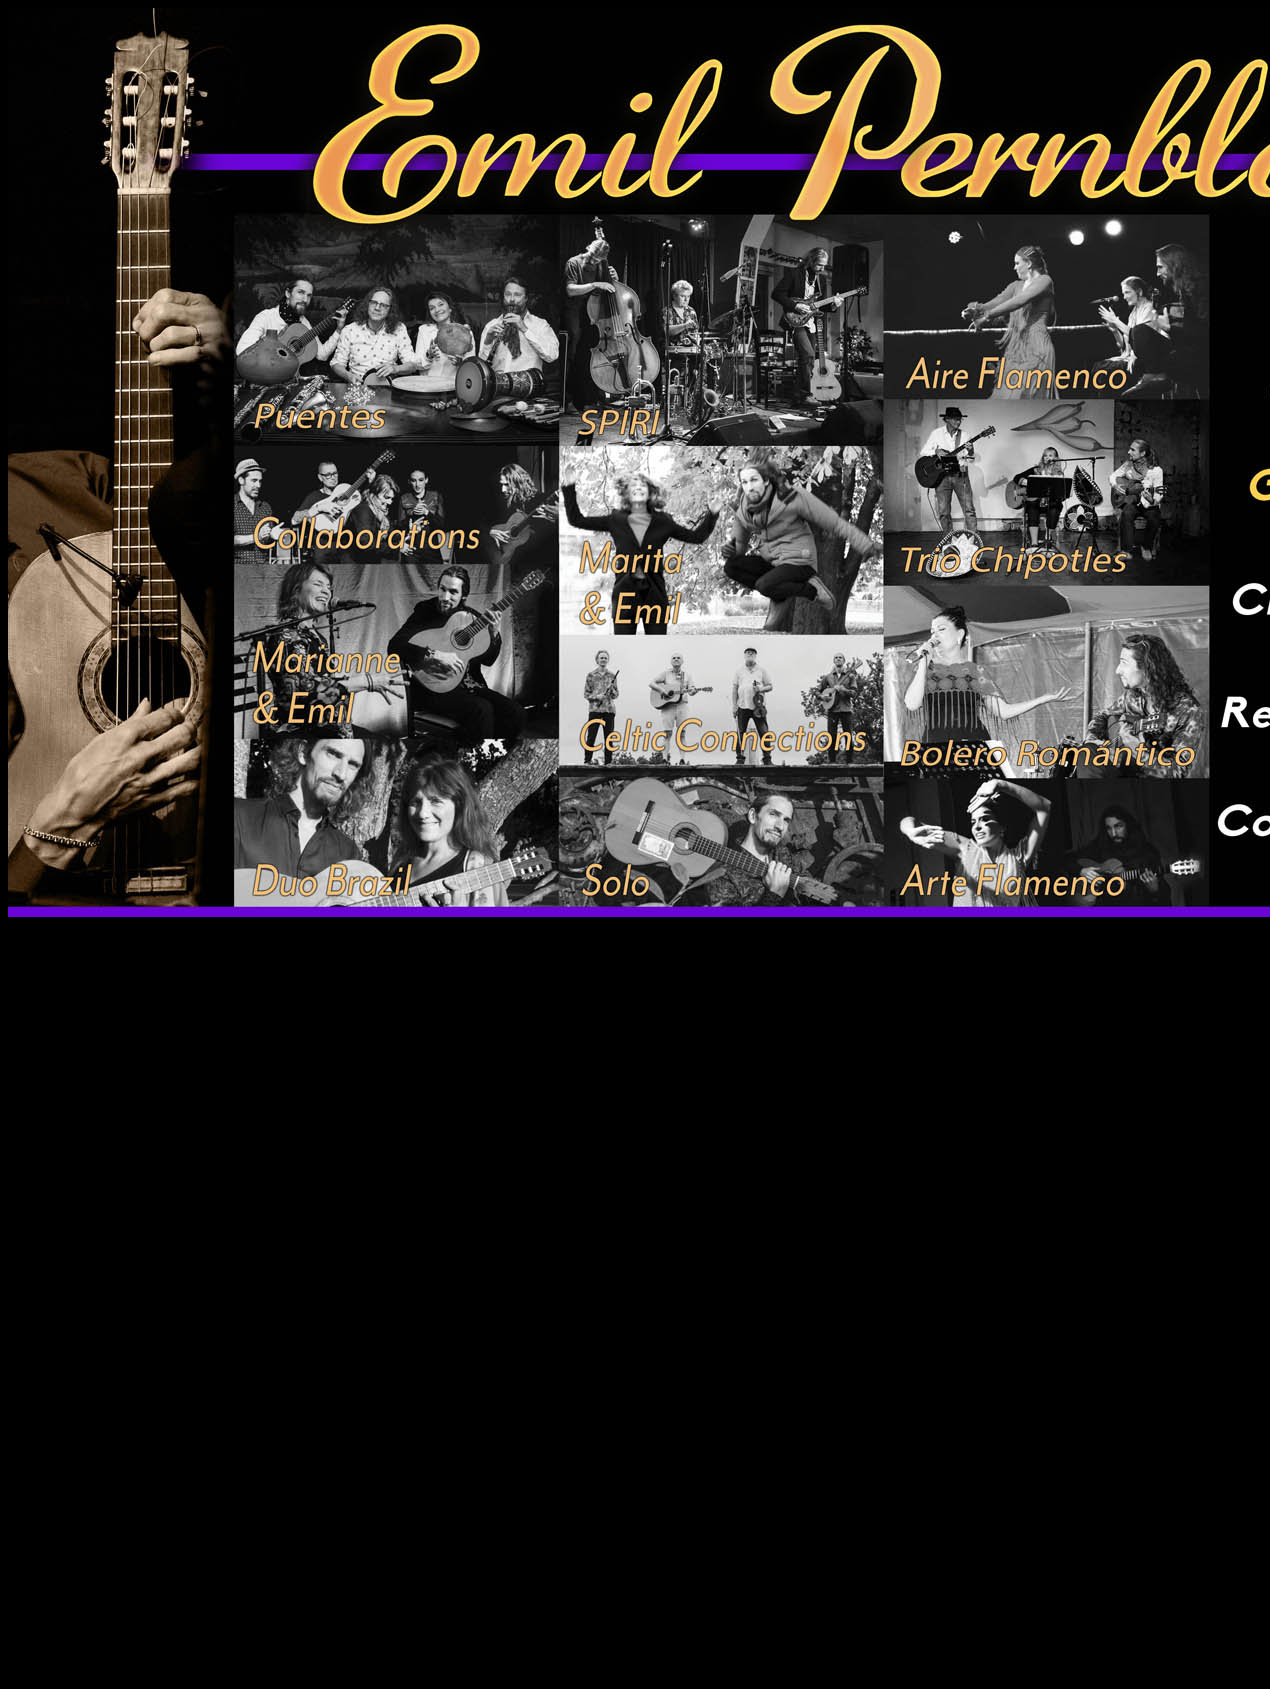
#include <cairo.h>
#include <math.h>
#include <stddef.h>


static void ink(cairo_t *ctx, unsigned color) {
    cairo_set_source_rgb(ctx, (color >> 16) / 255.0, (color >> 8 & 255) / 255.0, (color & 255) / 255.0);
}

static void paste(cairo_t *ctx, const char *path, double x, double y, double w, double h) {
    cairo_surface_t *image = cairo_image_surface_create_from_png(path);
    cairo_save(ctx);
    cairo_set_source_surface(ctx, image, x, y);
    cairo_rectangle(ctx, x, y, w, h);
    cairo_fill(ctx);
    cairo_restore(ctx);
    cairo_surface_destroy(image);
}

int main(void) {
    cairo_surface_t *surface = cairo_image_surface_create(CAIRO_FORMAT_RGB24, 1270, 1689);
    cairo_t *ctx = cairo_create(surface);
    cairo_font_options_t *options = cairo_font_options_create();
    cairo_font_options_set_hint_metrics(options, CAIRO_HINT_METRICS_OFF);
    cairo_font_options_set_hint_style(options, CAIRO_HINT_STYLE_NONE);
    cairo_set_font_options(ctx, options);
    cairo_set_miter_limit(ctx, 4);
    ink(ctx, 0x000000);
    cairo_paint(ctx);
    paste(ctx, "media/1.png", 8, 8, 1262, 909);
    cairo_surface_write_to_png(surface, "image.png");
    cairo_font_options_destroy(options);
    cairo_destroy(ctx);
    cairo_surface_destroy(surface);
    return 0;
}
